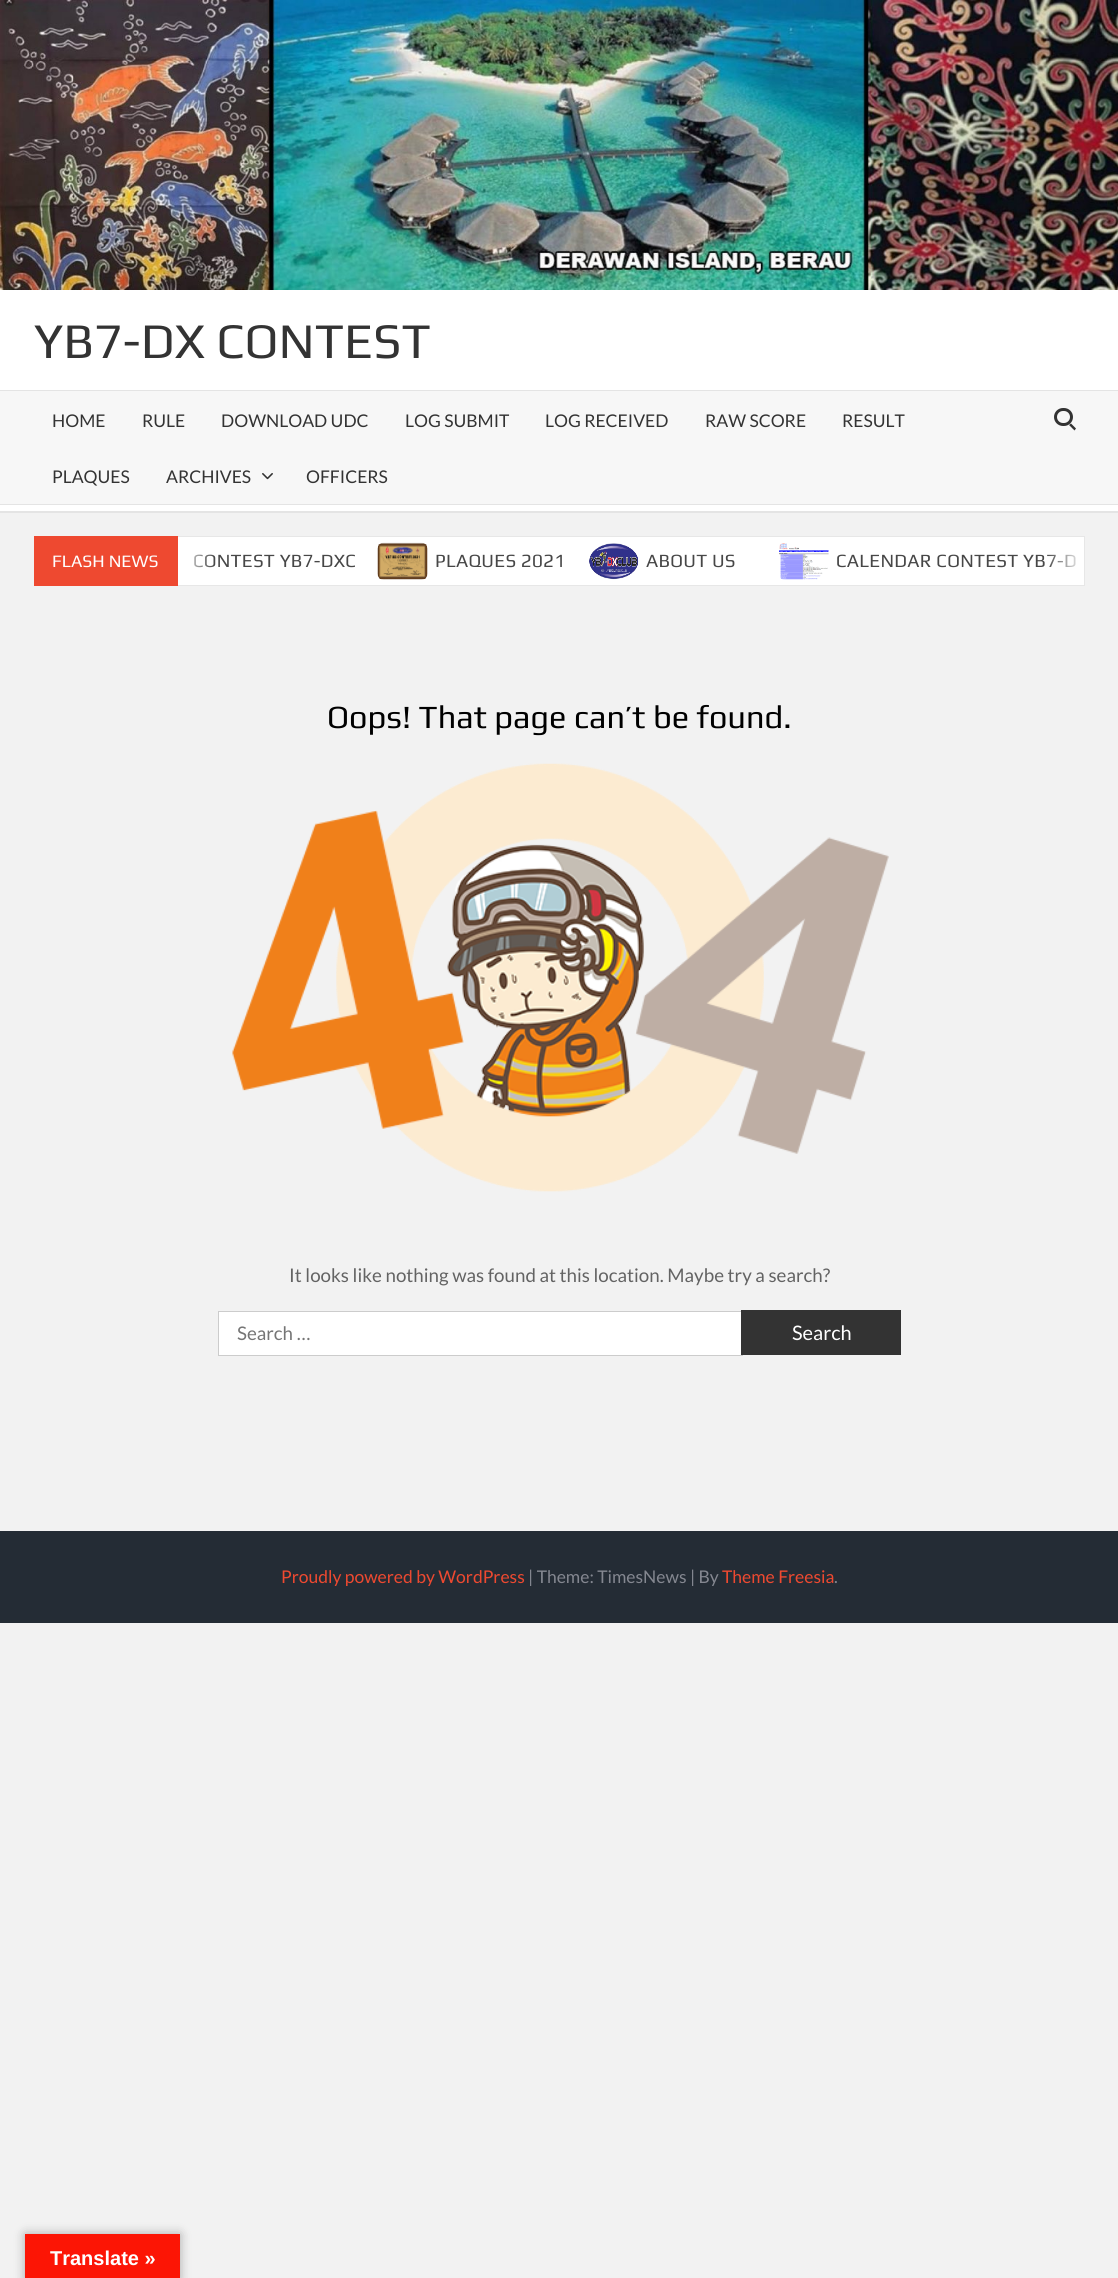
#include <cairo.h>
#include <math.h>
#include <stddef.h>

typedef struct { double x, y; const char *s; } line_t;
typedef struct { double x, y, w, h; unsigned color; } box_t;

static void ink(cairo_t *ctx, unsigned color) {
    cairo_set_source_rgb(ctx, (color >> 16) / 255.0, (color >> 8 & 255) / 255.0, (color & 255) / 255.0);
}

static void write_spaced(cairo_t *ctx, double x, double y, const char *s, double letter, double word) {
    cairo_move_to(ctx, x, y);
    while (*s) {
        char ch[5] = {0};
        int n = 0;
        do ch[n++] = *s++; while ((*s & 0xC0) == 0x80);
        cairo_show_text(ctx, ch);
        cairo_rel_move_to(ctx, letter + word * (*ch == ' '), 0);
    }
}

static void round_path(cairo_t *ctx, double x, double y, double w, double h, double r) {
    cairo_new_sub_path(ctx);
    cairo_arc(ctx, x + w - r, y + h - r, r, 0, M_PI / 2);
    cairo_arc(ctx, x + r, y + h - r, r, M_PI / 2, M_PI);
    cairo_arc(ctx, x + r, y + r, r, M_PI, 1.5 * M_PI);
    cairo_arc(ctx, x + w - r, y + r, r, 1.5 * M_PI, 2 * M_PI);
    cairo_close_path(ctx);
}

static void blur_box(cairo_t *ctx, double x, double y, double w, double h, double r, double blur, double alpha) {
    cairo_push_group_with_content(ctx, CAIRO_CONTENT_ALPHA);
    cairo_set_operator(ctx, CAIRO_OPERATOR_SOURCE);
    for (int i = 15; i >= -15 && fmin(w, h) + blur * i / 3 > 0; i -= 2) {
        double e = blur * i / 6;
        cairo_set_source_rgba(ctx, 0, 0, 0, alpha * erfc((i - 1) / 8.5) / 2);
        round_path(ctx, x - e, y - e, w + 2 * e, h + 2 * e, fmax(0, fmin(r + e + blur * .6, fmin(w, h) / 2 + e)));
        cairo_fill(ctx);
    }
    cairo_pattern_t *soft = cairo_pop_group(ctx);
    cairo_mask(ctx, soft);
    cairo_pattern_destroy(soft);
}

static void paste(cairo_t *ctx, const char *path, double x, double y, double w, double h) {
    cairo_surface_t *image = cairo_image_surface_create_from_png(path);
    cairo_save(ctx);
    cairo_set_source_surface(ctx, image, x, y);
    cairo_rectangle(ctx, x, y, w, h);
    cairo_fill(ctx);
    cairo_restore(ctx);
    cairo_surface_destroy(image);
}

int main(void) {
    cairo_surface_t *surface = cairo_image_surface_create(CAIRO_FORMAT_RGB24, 1118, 2278);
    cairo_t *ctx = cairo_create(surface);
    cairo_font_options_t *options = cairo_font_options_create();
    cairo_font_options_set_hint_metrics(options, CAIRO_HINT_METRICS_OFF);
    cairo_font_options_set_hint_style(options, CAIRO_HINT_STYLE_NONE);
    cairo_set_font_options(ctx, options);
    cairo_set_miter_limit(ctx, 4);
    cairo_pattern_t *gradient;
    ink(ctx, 0xF2F2F2);
    cairo_paint(ctx);
    paste(ctx, "media/1.png", 0, 0, 1118, 290);
    ink(ctx, 0xFFFFFF);
    cairo_rectangle(ctx, 0, 290, 1118, 100);
    cairo_fill(ctx);
    cairo_select_font_face(ctx, "Play", CAIRO_FONT_SLANT_NORMAL, CAIRO_FONT_WEIGHT_NORMAL);
    cairo_set_font_size(ctx, 50);
    ink(ctx, 0x333333);
    cairo_move_to(ctx, 34, 358);
    cairo_show_text(ctx, "YB7-DX CONTEST");
    ink(ctx, 0xE4E4E4);
    cairo_new_path(ctx);
    cairo_move_to(ctx, 0, 511);
    cairo_line_to(ctx, 0, 513);
    cairo_line_to(ctx, 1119, 513);
    cairo_line_to(ctx, 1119, 391);
    cairo_line_to(ctx, 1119, 511);
    cairo_close_path(ctx);
    cairo_fill(ctx);
    {
        static const box_t items[] = {
            {0, 391, 1118, 113, 0xF7F7F7},
            {0, 505, 1118, 6, 0xFFFFFF},
            {0, 390, 1118, 1, 0xE4E4E4},
            {0, 504, 1118, 1, 0xE4E4E4},
        };
        for (size_t i = 0; i < sizeof items / sizeof *items; i++) {
            ink(ctx, items[i].color);
            cairo_rectangle(ctx, items[i].x, items[i].y, items[i].w, items[i].h);
            cairo_fill(ctx);
        }
    }
    cairo_select_font_face(ctx, "Lato", CAIRO_FONT_SLANT_NORMAL, CAIRO_FONT_WEIGHT_NORMAL);
    cairo_set_font_size(ctx, 17.5);
    ink(ctx, 0x333333);
    {
        static const line_t items[] = {
            {52, 427, "HOME"},
            {142, 427, "RULE"},
            {221, 427, "DOWNLOAD UDC"},
            {405, 427, "LOG SUBMIT"},
            {545, 427, "LOG RECEIVED"},
            {705, 427, "RAW SCORE"},
            {842, 427, "RESULT"},
            {52, 483, "PLAQUES"},
            {166, 483, "ARCHIVES"},
        };
        for (size_t i = 0; i < sizeof items / sizeof *items; i++) {
            cairo_move_to(ctx, items[i].x, items[i].y);
            cairo_show_text(ctx, items[i].s);
        }
    }
    paste(ctx, "media/2.png", 262, 473, 11, 7);
    cairo_move_to(ctx, 306, 483);
    cairo_show_text(ctx, "OFFICERS");
    round_path(ctx, 1055.5, 409.5, 16, 15, 7.5);
    cairo_set_line_width(ctx, 3);
    cairo_stroke(ctx);
    cairo_new_path(ctx);
    cairo_move_to(ctx, 1071, 423.5);
    cairo_line_to(ctx, 1076, 428.5);
    cairo_line_to(ctx, 1074.5, 430.5);
    cairo_line_to(ctx, 1069, 425);
    cairo_close_path(ctx);
    cairo_fill(ctx);
    ink(ctx, 0xFFFFFF);
    cairo_rectangle(ctx, 178, 537, 906, 48);
    cairo_fill(ctx);
    cairo_rectangle(ctx, 34.5, 536.5, 1050, 49);
    ink(ctx, 0xE7E7E7);
    cairo_set_line_width(ctx, 1);
    cairo_stroke(ctx);
    cairo_select_font_face(ctx, "Play", CAIRO_FONT_SLANT_NORMAL, CAIRO_FONT_WEIGHT_NORMAL);
    cairo_set_font_size(ctx, 18.75);
    ink(ctx, 0x474747);
    write_spaced(ctx, 193, 567, "CONTEST YB7-DXC", 0.25, 0);
    paste(ctx, "media/3.png", 377, 542, 51, 38);
    write_spaced(ctx, 435, 567, "PLAQUES 2021", 0.25, 0);
    paste(ctx, "media/4.png", 589, 543, 50, 37);
    write_spaced(ctx, 646, 567, "ABOUT US", 0.25, 0);
    paste(ctx, "media/5.png", 779, 543, 50, 37);
    write_spaced(ctx, 836, 567, "CALENDAR CONTEST YB7-D", 0.25, 0);
    ink(ctx, 0xEE4930);
    cairo_rectangle(ctx, 34, 536, 144, 50);
    cairo_fill(ctx);
    cairo_set_font_size(ctx, 17.5);
    ink(ctx, 0xFFFFFF);
    cairo_move_to(ctx, 52, 567);
    cairo_show_text(ctx, "FLASH NEWS");
    gradient = cairo_pattern_create_linear(178, 561, 215, 561);
    cairo_pattern_add_color_stop_rgba(gradient, 0, 1, 1, 1, 1);
    cairo_pattern_add_color_stop_rgba(gradient, 1, 1, 1, 1, 0);
    cairo_set_source(ctx, gradient);
    cairo_pattern_destroy(gradient);
    cairo_rectangle(ctx, 193, 554, 21, 14);
    cairo_fill(ctx);
    gradient = cairo_pattern_create_linear(1046, 561, 1084, 561);
    cairo_pattern_add_color_stop_rgba(gradient, 0, 1, 1, 1, 0);
    cairo_pattern_add_color_stop_rgba(gradient, 1, 1, 1, 1, 1);
    cairo_set_source(ctx, gradient);
    cairo_pattern_destroy(gradient);
    cairo_rectangle(ctx, 1047, 554, 29, 13);
    cairo_fill(ctx);
    cairo_set_font_size(ctx, 32.5);
    ink(ctx, 0x000000);
    cairo_move_to(ctx, 327, 728);
    cairo_show_text(ctx, "Oops! That page can’t be found.");
    paste(ctx, "media/6.png", 232, 763, 657, 429);
    cairo_select_font_face(ctx, "Lato", CAIRO_FONT_SLANT_NORMAL, CAIRO_FONT_WEIGHT_NORMAL);
    cairo_set_font_size(ctx, 18.75);
    ink(ctx, 0x636363);
    cairo_move_to(ctx, 289, 1282);
    cairo_show_text(ctx, "It looks like nothing was found at this location. Maybe try a search?");
    ink(ctx, 0xFFFFFF);
    cairo_rectangle(ctx, 219, 1312, 522, 43);
    cairo_fill(ctx);
    cairo_rectangle(ctx, 218.5, 1311.5, 524, 44);
    ink(ctx, 0xCCCCCC);
    cairo_stroke(ctx);
    ink(ctx, 0x757575);
    cairo_move_to(ctx, 237, 1340);
    cairo_show_text(ctx, "Search …");
    ink(ctx, 0x333333);
    cairo_rectangle(ctx, 741, 1310, 160, 45);
    cairo_fill(ctx);
    cairo_set_font_size(ctx, 20);
    ink(ctx, 0xFFFFFF);
    cairo_move_to(ctx, 792, 1340);
    cairo_show_text(ctx, "Search");
    ink(ctx, 0x242C35);
    cairo_rectangle(ctx, 0, 1531, 1118, 92);
    cairo_fill(ctx);
    cairo_set_font_size(ctx, 17.5);
    ink(ctx, 0xEE4930);
    cairo_move_to(ctx, 281, 1583);
    cairo_show_text(ctx, "Proudly powered by WordPress");
    ink(ctx, 0x848790);
    cairo_move_to(ctx, 528, 1583);
    cairo_show_text(ctx, "| Theme: TimesNews | By");
    ink(ctx, 0xEE4930);
    cairo_move_to(ctx, 722, 1583);
    cairo_show_text(ctx, "Theme Freesia");
    ink(ctx, 0x848790);
    cairo_move_to(ctx, 834, 1583);
    cairo_show_text(ctx, ".");
    ink(ctx, 0x000000);
    blur_box(ctx, 25, 2234, 155, 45, 0, 5.5, 0.3);
    ink(ctx, 0xFC1505);
    cairo_rectangle(ctx, 25, 2234, 155, 44);
    cairo_fill(ctx);
    cairo_select_font_face(ctx, "Liberation Sans", CAIRO_FONT_SLANT_NORMAL, CAIRO_FONT_WEIGHT_BOLD);
    cairo_set_font_size(ctx, 20);
    ink(ctx, 0xFFFFFF);
    cairo_move_to(ctx, 50, 2265);
    cairo_show_text(ctx, "Translate »");
    cairo_surface_write_to_png(surface, "image.png");
    cairo_font_options_destroy(options);
    cairo_destroy(ctx);
    cairo_surface_destroy(surface);
    return 0;
}
